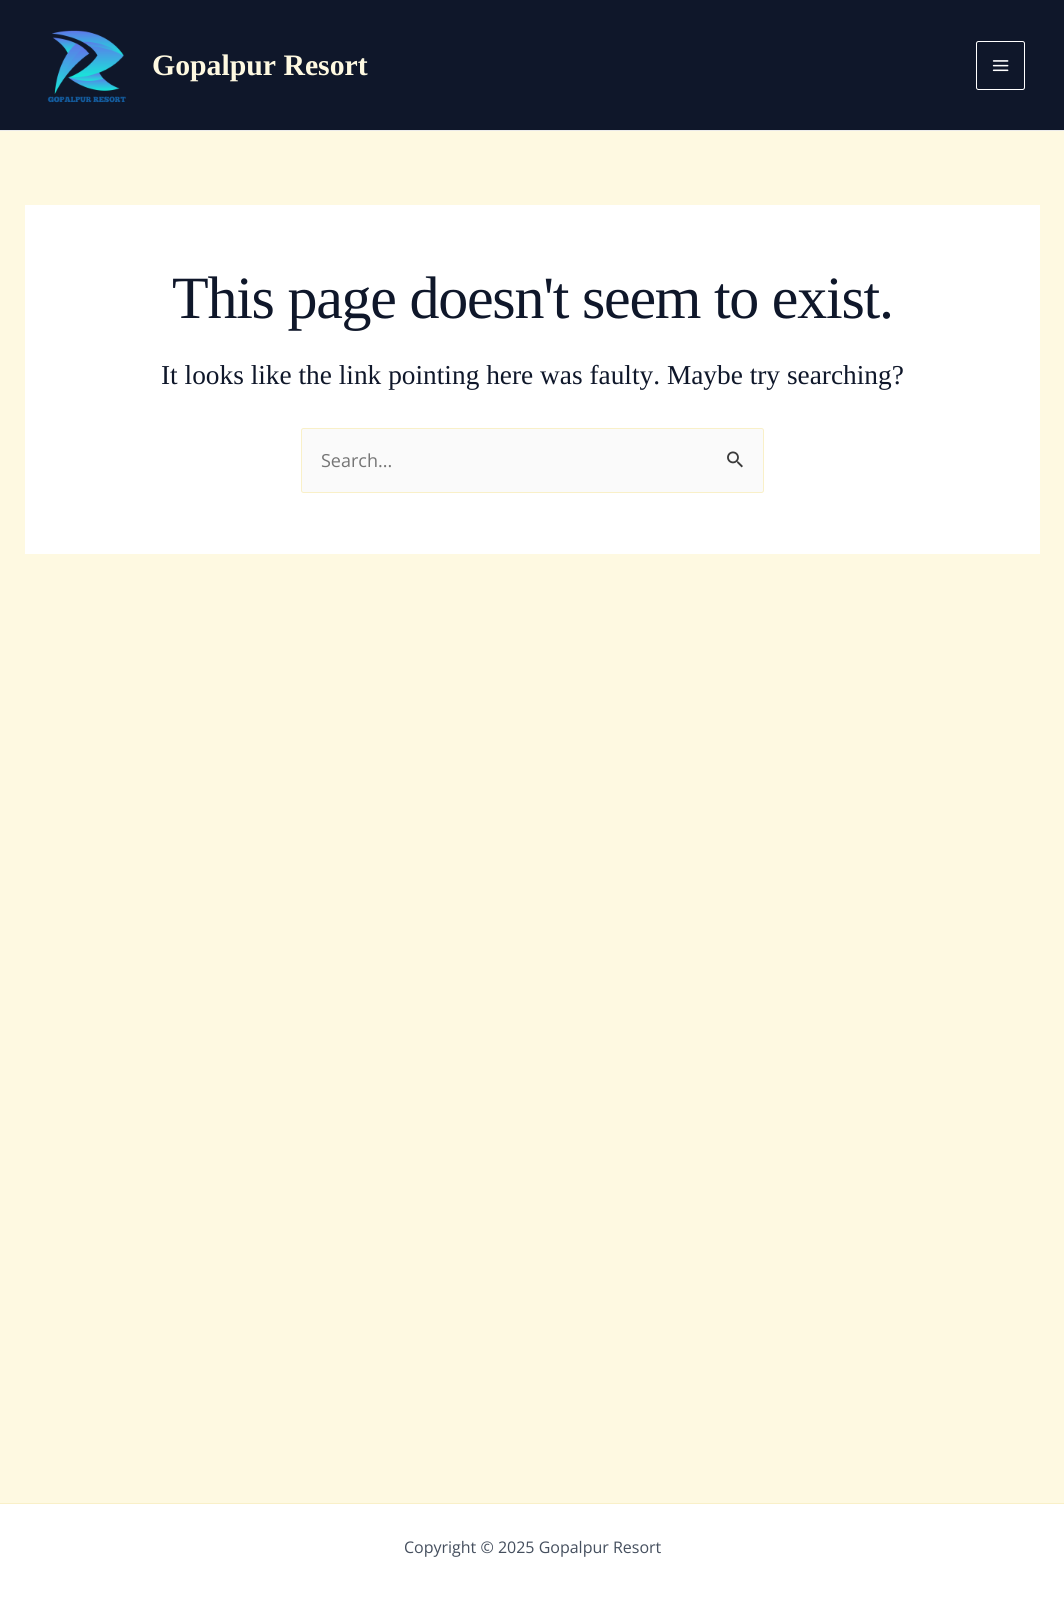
#include <cairo.h>
#include <math.h>
#include <stddef.h>


static void ink(cairo_t *ctx, unsigned color) {
    cairo_set_source_rgb(ctx, (color >> 16) / 255.0, (color >> 8 & 255) / 255.0, (color & 255) / 255.0);
}

static void write_spaced(cairo_t *ctx, double x, double y, const char *s, double letter, double word) {
    cairo_move_to(ctx, x, y);
    while (*s) {
        char ch[5] = {0};
        int n = 0;
        do ch[n++] = *s++; while ((*s & 0xC0) == 0x80);
        cairo_show_text(ctx, ch);
        cairo_rel_move_to(ctx, letter + word * (*ch == ' '), 0);
    }
}

static void round_path(cairo_t *ctx, double x, double y, double w, double h, double r) {
    cairo_new_sub_path(ctx);
    cairo_arc(ctx, x + w - r, y + h - r, r, 0, M_PI / 2);
    cairo_arc(ctx, x + r, y + h - r, r, M_PI / 2, M_PI);
    cairo_arc(ctx, x + r, y + r, r, M_PI, 1.5 * M_PI);
    cairo_arc(ctx, x + w - r, y + r, r, 1.5 * M_PI, 2 * M_PI);
    cairo_close_path(ctx);
}

static void paste(cairo_t *ctx, const char *path, double x, double y, double w, double h) {
    cairo_surface_t *image = cairo_image_surface_create_from_png(path);
    cairo_save(ctx);
    cairo_set_source_surface(ctx, image, x, y);
    cairo_rectangle(ctx, x, y, w, h);
    cairo_fill(ctx);
    cairo_restore(ctx);
    cairo_surface_destroy(image);
}

int main(void) {
    cairo_surface_t *surface = cairo_image_surface_create(CAIRO_FORMAT_RGB24, 1064, 1603);
    cairo_t *ctx = cairo_create(surface);
    cairo_font_options_t *options = cairo_font_options_create();
    cairo_font_options_set_hint_metrics(options, CAIRO_HINT_METRICS_OFF);
    cairo_font_options_set_hint_style(options, CAIRO_HINT_STYLE_NONE);
    cairo_set_font_options(ctx, options);
    cairo_set_miter_limit(ctx, 4);
    ink(ctx, 0xFEF9E1);
    cairo_paint(ctx);
    ink(ctx, 0x0F172A);
    cairo_rectangle(ctx, 0, 0, 1064, 130);
    cairo_fill(ctx);
    ink(ctx, 0xEAEAEA);
    cairo_rectangle(ctx, 0, 130, 1064, 1);
    cairo_fill(ctx);
    paste(ctx, "media/1.png", 47, 30, 80, 73);
    cairo_select_font_face(ctx, "Liberation Serif", CAIRO_FONT_SLANT_NORMAL, CAIRO_FONT_WEIGHT_BOLD);
    cairo_set_font_size(ctx, 29.75);
    ink(ctx, 0xFEF9E1);
    cairo_move_to(ctx, 152, 75);
    cairo_show_text(ctx, "Gopalpur Resort");
    round_path(ctx, 976.5, 41.5, 48, 48, 2);
    ink(ctx, 0xFFFFFF);
    cairo_set_line_width(ctx, 1);
    cairo_stroke(ctx);
    paste(ctx, "media/2.png", 992, 60, 17, 12);
    cairo_rectangle(ctx, 25, 205, 1015, 349);
    cairo_fill(ctx);
    cairo_select_font_face(ctx, "Liberation Serif", CAIRO_FONT_SLANT_NORMAL, CAIRO_FONT_WEIGHT_NORMAL);
    cairo_set_font_size(ctx, 60);
    ink(ctx, 0x0F172A);
    write_spaced(ctx, 172, 318, "This page doesn't seem to exist.", -1.25, 0);
    cairo_set_font_size(ctx, 27.35);
    cairo_move_to(ctx, 161, 384);
    cairo_show_text(ctx, "It looks like the link pointing here was faulty. Maybe try searching?");
    ink(ctx, 0xFAFAFA);
    round_path(ctx, 301.5, 428.5, 462, 64, 2);
    cairo_fill_preserve(ctx);
    ink(ctx, 0xF9F0C8);
    cairo_stroke(ctx);
    cairo_select_font_face(ctx, "Open Sans", CAIRO_FONT_SLANT_NORMAL, CAIRO_FONT_WEIGHT_NORMAL);
    cairo_set_font_size(ctx, 18);
    ink(ctx, 0x757575);
    cairo_move_to(ctx, 321, 467);
    cairo_show_text(ctx, "Search...");
    paste(ctx, "media/3.png", 727, 451, 16, 17);
    ink(ctx, 0xFFFFFF);
    cairo_rectangle(ctx, 0, 1504, 1064, 99);
    cairo_fill(ctx);
    ink(ctx, 0xF9F0C8);
    cairo_rectangle(ctx, 0, 1503, 1064, 1);
    cairo_fill(ctx);
    cairo_set_font_size(ctx, 16);
    ink(ctx, 0x454F5E);
    cairo_move_to(ctx, 404, 1553);
    cairo_show_text(ctx, "Copyright © 2025 Gopalpur Resort");
    cairo_surface_write_to_png(surface, "image.png");
    cairo_font_options_destroy(options);
    cairo_destroy(ctx);
    cairo_surface_destroy(surface);
    return 0;
}
